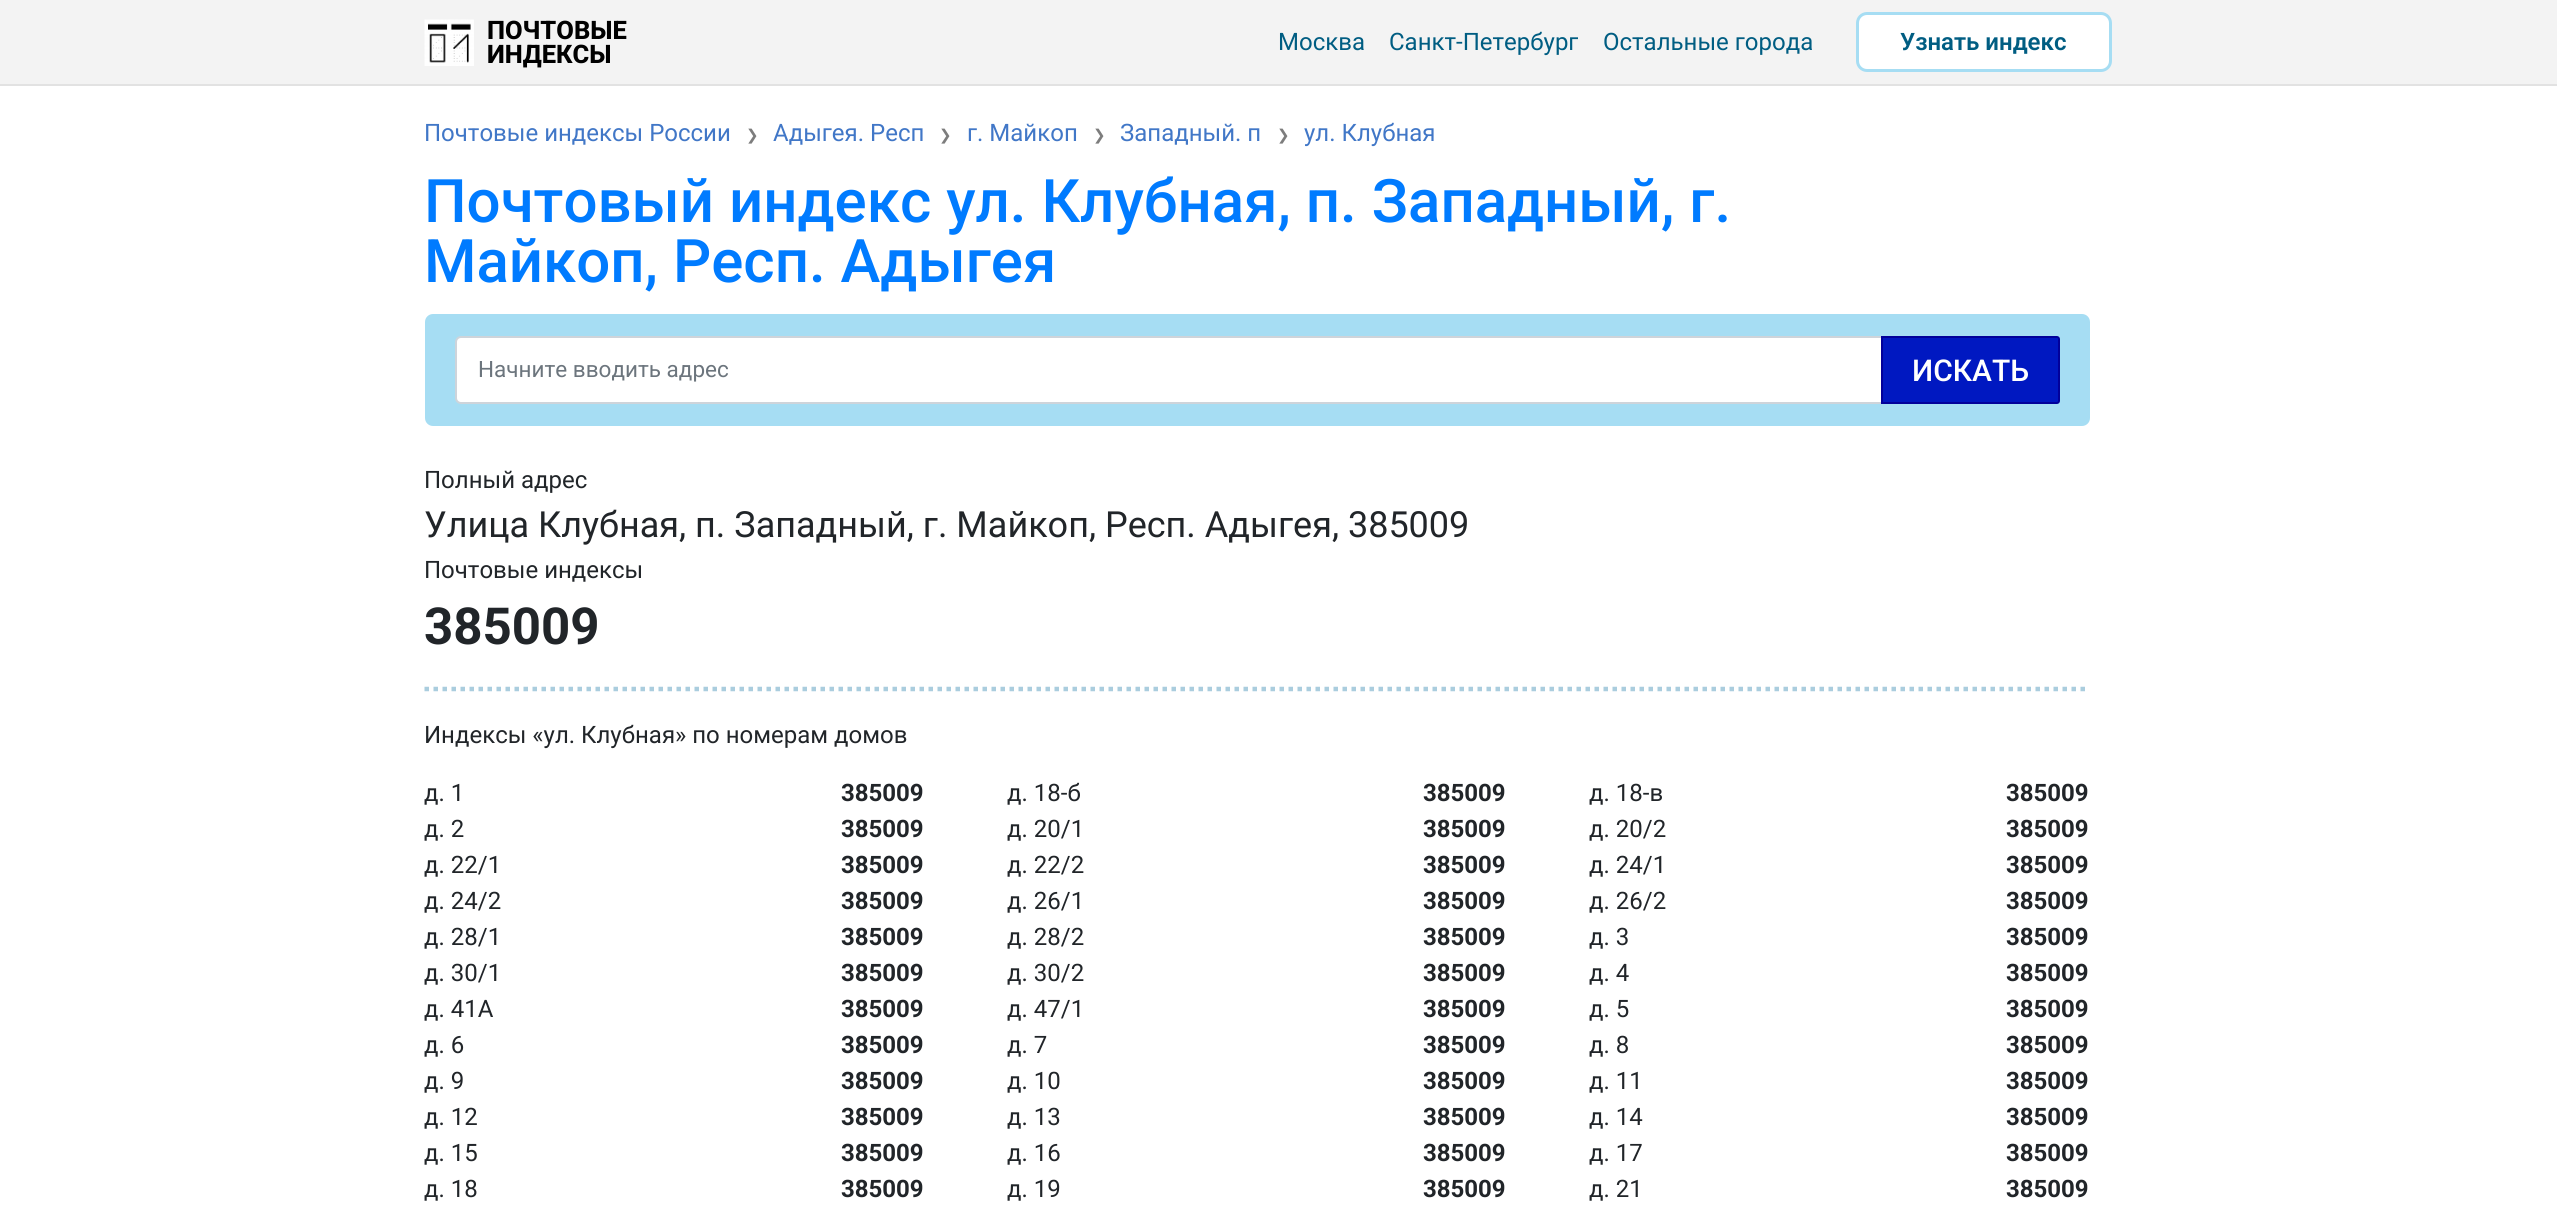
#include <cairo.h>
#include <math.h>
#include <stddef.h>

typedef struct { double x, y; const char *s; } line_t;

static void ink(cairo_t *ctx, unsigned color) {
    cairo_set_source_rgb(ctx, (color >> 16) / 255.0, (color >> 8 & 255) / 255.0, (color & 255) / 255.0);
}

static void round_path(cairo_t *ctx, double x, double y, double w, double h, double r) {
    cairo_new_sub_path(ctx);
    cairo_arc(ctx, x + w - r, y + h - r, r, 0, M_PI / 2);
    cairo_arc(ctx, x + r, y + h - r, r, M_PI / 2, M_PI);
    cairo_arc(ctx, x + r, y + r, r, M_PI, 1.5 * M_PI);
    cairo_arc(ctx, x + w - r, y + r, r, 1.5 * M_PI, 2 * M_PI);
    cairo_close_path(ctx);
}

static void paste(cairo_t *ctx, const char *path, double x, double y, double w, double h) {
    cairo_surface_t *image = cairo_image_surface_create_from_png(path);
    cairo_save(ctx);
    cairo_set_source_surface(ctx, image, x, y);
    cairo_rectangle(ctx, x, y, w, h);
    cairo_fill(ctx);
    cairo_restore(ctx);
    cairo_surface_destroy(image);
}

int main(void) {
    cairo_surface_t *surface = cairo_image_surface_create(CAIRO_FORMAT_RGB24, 2557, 1222);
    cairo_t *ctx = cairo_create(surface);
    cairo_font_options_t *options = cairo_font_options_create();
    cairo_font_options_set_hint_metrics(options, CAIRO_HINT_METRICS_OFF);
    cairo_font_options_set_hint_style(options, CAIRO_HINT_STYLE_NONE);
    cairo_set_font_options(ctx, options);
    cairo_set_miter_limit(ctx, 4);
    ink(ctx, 0xFFFFFF);
    cairo_paint(ctx);
    ink(ctx, 0xF3F3F3);
    cairo_rectangle(ctx, 0, 0, 2557, 84);
    cairo_fill(ctx);
    ink(ctx, 0xE2E2E2);
    cairo_rectangle(ctx, 0, 84, 2557, 2);
    cairo_fill(ctx);
    paste(ctx, "media/1.png", 424, 19, 50, 47);
    cairo_select_font_face(ctx, "Roboto ExtraBold", CAIRO_FONT_SLANT_NORMAL, CAIRO_FONT_WEIGHT_NORMAL);
    cairo_set_font_size(ctx, 25.5);
    ink(ctx, 0x000000);
    cairo_move_to(ctx, 487, 39);
    cairo_show_text(ctx, "ПОЧТОВЫЕ");
    cairo_move_to(ctx, 487, 63);
    cairo_show_text(ctx, "ИНДЕКСЫ");
    cairo_select_font_face(ctx, "Roboto", CAIRO_FONT_SLANT_NORMAL, CAIRO_FONT_WEIGHT_NORMAL);
    cairo_set_font_size(ctx, 24);
    ink(ctx, 0x005D82);
    {
        static const line_t items[] = {
            {1278, 50, "Москва"},
            {1389, 50, "Санкт-Петербург"},
            {1603, 50, "Остальные города"},
        };
        for (size_t i = 0; i < sizeof items / sizeof *items; i++) {
            cairo_move_to(ctx, items[i].x, items[i].y);
            cairo_show_text(ctx, items[i].s);
        }
    }
    ink(ctx, 0xFFFFFF);
    round_path(ctx, 1857.5, 13.5, 253, 57, 9.5);
    cairo_fill_preserve(ctx);
    ink(ctx, 0xA6DDF3);
    cairo_set_line_width(ctx, 3);
    cairo_stroke(ctx);
    cairo_select_font_face(ctx, "Roboto SemiBold", CAIRO_FONT_SLANT_NORMAL, CAIRO_FONT_WEIGHT_NORMAL);
    ink(ctx, 0x005D82);
    cairo_move_to(ctx, 1900, 50);
    cairo_show_text(ctx, "Узнать индекс");
    cairo_select_font_face(ctx, "Roboto", CAIRO_FONT_SLANT_NORMAL, CAIRO_FONT_WEIGHT_NORMAL);
    ink(ctx, 0x4177C7);
    cairo_move_to(ctx, 424, 141);
    cairo_show_text(ctx, "Почтовые индексы России");
    cairo_select_font_face(ctx, "DejaVu Sans", CAIRO_FONT_SLANT_NORMAL, CAIRO_FONT_WEIGHT_NORMAL);
    cairo_set_font_size(ctx, 15);
    ink(ctx, 0x7D7D7D);
    cairo_move_to(ctx, 746, 140);
    cairo_show_text(ctx, "❯");
    cairo_select_font_face(ctx, "Roboto", CAIRO_FONT_SLANT_NORMAL, CAIRO_FONT_WEIGHT_NORMAL);
    cairo_set_font_size(ctx, 24);
    ink(ctx, 0x4177C7);
    cairo_move_to(ctx, 773, 141);
    cairo_show_text(ctx, "Адыгея. Респ");
    cairo_select_font_face(ctx, "DejaVu Sans", CAIRO_FONT_SLANT_NORMAL, CAIRO_FONT_WEIGHT_NORMAL);
    cairo_set_font_size(ctx, 15);
    ink(ctx, 0x7D7D7D);
    cairo_move_to(ctx, 939, 140);
    cairo_show_text(ctx, "❯");
    cairo_select_font_face(ctx, "Roboto", CAIRO_FONT_SLANT_NORMAL, CAIRO_FONT_WEIGHT_NORMAL);
    cairo_set_font_size(ctx, 24);
    ink(ctx, 0x4177C7);
    cairo_move_to(ctx, 967, 141);
    cairo_show_text(ctx, "г. Майкоп");
    cairo_select_font_face(ctx, "DejaVu Sans", CAIRO_FONT_SLANT_NORMAL, CAIRO_FONT_WEIGHT_NORMAL);
    cairo_set_font_size(ctx, 15);
    ink(ctx, 0x7D7D7D);
    cairo_move_to(ctx, 1093, 140);
    cairo_show_text(ctx, "❯");
    cairo_select_font_face(ctx, "Roboto", CAIRO_FONT_SLANT_NORMAL, CAIRO_FONT_WEIGHT_NORMAL);
    cairo_set_font_size(ctx, 24);
    ink(ctx, 0x4177C7);
    cairo_move_to(ctx, 1120, 141);
    cairo_show_text(ctx, "Западный. п");
    cairo_select_font_face(ctx, "DejaVu Sans", CAIRO_FONT_SLANT_NORMAL, CAIRO_FONT_WEIGHT_NORMAL);
    cairo_set_font_size(ctx, 15);
    ink(ctx, 0x7D7D7D);
    cairo_move_to(ctx, 1277, 140);
    cairo_show_text(ctx, "❯");
    cairo_select_font_face(ctx, "Roboto", CAIRO_FONT_SLANT_NORMAL, CAIRO_FONT_WEIGHT_NORMAL);
    cairo_set_font_size(ctx, 24);
    ink(ctx, 0x4177C7);
    cairo_move_to(ctx, 1304, 141);
    cairo_show_text(ctx, "ул. Клубная");
    cairo_select_font_face(ctx, "Roboto Medium", CAIRO_FONT_SLANT_NORMAL, CAIRO_FONT_WEIGHT_NORMAL);
    cairo_set_font_size(ctx, 60);
    ink(ctx, 0x007BFF);
    cairo_move_to(ctx, 424, 222);
    cairo_show_text(ctx, "Почтовый индекс ул. Клубная, п. Западный, г.");
    cairo_move_to(ctx, 424, 282);
    cairo_show_text(ctx, "Майкоп, Респ. Адыгея");
    ink(ctx, 0xA6DDF3);
    round_path(ctx, 425, 314, 1665, 112, 8);
    cairo_fill(ctx);
    ink(ctx, 0xFFFFFF);
    round_path(ctx, 456, 337, 1603, 66, 5);
    cairo_fill_preserve(ctx);
    ink(ctx, 0xCED4DA);
    cairo_set_line_width(ctx, 2);
    cairo_stroke(ctx);
    cairo_select_font_face(ctx, "Roboto", CAIRO_FONT_SLANT_NORMAL, CAIRO_FONT_WEIGHT_NORMAL);
    cairo_set_font_size(ctx, 22.5);
    ink(ctx, 0x6C757D);
    cairo_move_to(ctx, 478, 377);
    cairo_show_text(ctx, "Начните вводить адрес");
    ink(ctx, 0x0018C1);
    cairo_new_path(ctx);
    cairo_move_to(ctx, 1882, 337);
    cairo_line_to(ctx, 2057, 337);
    cairo_curve_to(ctx, 2058, 337, 2059, 338, 2059, 339);
    cairo_line_to(ctx, 2059, 401);
    cairo_curve_to(ctx, 2059, 402, 2058, 403, 2057, 403);
    cairo_line_to(ctx, 1882, 403);
    cairo_close_path(ctx);
    cairo_fill_preserve(ctx);
    ink(ctx, 0x02009A);
    cairo_stroke(ctx);
    cairo_select_font_face(ctx, "Roboto Medium", CAIRO_FONT_SLANT_NORMAL, CAIRO_FONT_WEIGHT_NORMAL);
    cairo_set_font_size(ctx, 30);
    ink(ctx, 0xFFFFFF);
    cairo_move_to(ctx, 1912, 381);
    cairo_show_text(ctx, "ИСКАТЬ");
    cairo_select_font_face(ctx, "Roboto", CAIRO_FONT_SLANT_NORMAL, CAIRO_FONT_WEIGHT_NORMAL);
    cairo_set_font_size(ctx, 24);
    ink(ctx, 0x212529);
    cairo_move_to(ctx, 424, 488);
    cairo_show_text(ctx, "Полный адрес");
    cairo_set_font_size(ctx, 36);
    cairo_move_to(ctx, 424, 537);
    cairo_show_text(ctx, "Улица Клубная, п. Западный, г. Майкоп, Респ. Адыгея, 385009");
    cairo_set_font_size(ctx, 24);
    cairo_move_to(ctx, 424, 578);
    cairo_show_text(ctx, "Почтовые индексы");
    cairo_new_path(ctx);
    cairo_move_to(ctx, 424.5, 689);
    cairo_line_to(ctx, 2089.5, 689);
    ink(ctx, 0xAACDDE);
    cairo_set_line_width(ctx, 4.5);
    cairo_set_dash(ctx, (double[]){4.5, 4.5}, 2, 0);
    cairo_stroke(ctx);
    cairo_select_font_face(ctx, "Roboto", CAIRO_FONT_SLANT_NORMAL, CAIRO_FONT_WEIGHT_BOLD);
    cairo_set_font_size(ctx, 51);
    ink(ctx, 0x212529);
    cairo_move_to(ctx, 424, 644);
    cairo_show_text(ctx, "385009");
    cairo_select_font_face(ctx, "Roboto", CAIRO_FONT_SLANT_NORMAL, CAIRO_FONT_WEIGHT_NORMAL);
    cairo_set_font_size(ctx, 24);
    cairo_move_to(ctx, 424, 743);
    cairo_show_text(ctx, "Индексы «ул. Клубная» по номерам домов");
    cairo_move_to(ctx, 424, 801);
    cairo_show_text(ctx, "д. 1");
    cairo_select_font_face(ctx, "Roboto", CAIRO_FONT_SLANT_NORMAL, CAIRO_FONT_WEIGHT_BOLD);
    cairo_move_to(ctx, 841, 801);
    cairo_show_text(ctx, "385009");
    cairo_select_font_face(ctx, "Roboto", CAIRO_FONT_SLANT_NORMAL, CAIRO_FONT_WEIGHT_NORMAL);
    cairo_move_to(ctx, 1007, 801);
    cairo_show_text(ctx, "д. 18-б");
    cairo_select_font_face(ctx, "Roboto", CAIRO_FONT_SLANT_NORMAL, CAIRO_FONT_WEIGHT_BOLD);
    cairo_move_to(ctx, 1423, 801);
    cairo_show_text(ctx, "385009");
    cairo_select_font_face(ctx, "Roboto", CAIRO_FONT_SLANT_NORMAL, CAIRO_FONT_WEIGHT_NORMAL);
    cairo_move_to(ctx, 1589, 801);
    cairo_show_text(ctx, "д. 18-в");
    cairo_select_font_face(ctx, "Roboto", CAIRO_FONT_SLANT_NORMAL, CAIRO_FONT_WEIGHT_BOLD);
    cairo_move_to(ctx, 2006, 801);
    cairo_show_text(ctx, "385009");
    cairo_select_font_face(ctx, "Roboto", CAIRO_FONT_SLANT_NORMAL, CAIRO_FONT_WEIGHT_NORMAL);
    cairo_move_to(ctx, 424, 837);
    cairo_show_text(ctx, "д. 2");
    cairo_select_font_face(ctx, "Roboto", CAIRO_FONT_SLANT_NORMAL, CAIRO_FONT_WEIGHT_BOLD);
    cairo_move_to(ctx, 841, 837);
    cairo_show_text(ctx, "385009");
    cairo_select_font_face(ctx, "Roboto", CAIRO_FONT_SLANT_NORMAL, CAIRO_FONT_WEIGHT_NORMAL);
    cairo_move_to(ctx, 1007, 837);
    cairo_show_text(ctx, "д. 20/1");
    cairo_select_font_face(ctx, "Roboto", CAIRO_FONT_SLANT_NORMAL, CAIRO_FONT_WEIGHT_BOLD);
    cairo_move_to(ctx, 1423, 837);
    cairo_show_text(ctx, "385009");
    cairo_select_font_face(ctx, "Roboto", CAIRO_FONT_SLANT_NORMAL, CAIRO_FONT_WEIGHT_NORMAL);
    cairo_move_to(ctx, 1589, 837);
    cairo_show_text(ctx, "д. 20/2");
    cairo_select_font_face(ctx, "Roboto", CAIRO_FONT_SLANT_NORMAL, CAIRO_FONT_WEIGHT_BOLD);
    cairo_move_to(ctx, 2006, 837);
    cairo_show_text(ctx, "385009");
    cairo_select_font_face(ctx, "Roboto", CAIRO_FONT_SLANT_NORMAL, CAIRO_FONT_WEIGHT_NORMAL);
    cairo_move_to(ctx, 424, 873);
    cairo_show_text(ctx, "д. 22/1");
    cairo_select_font_face(ctx, "Roboto", CAIRO_FONT_SLANT_NORMAL, CAIRO_FONT_WEIGHT_BOLD);
    cairo_move_to(ctx, 841, 873);
    cairo_show_text(ctx, "385009");
    cairo_select_font_face(ctx, "Roboto", CAIRO_FONT_SLANT_NORMAL, CAIRO_FONT_WEIGHT_NORMAL);
    cairo_move_to(ctx, 1007, 873);
    cairo_show_text(ctx, "д. 22/2");
    cairo_select_font_face(ctx, "Roboto", CAIRO_FONT_SLANT_NORMAL, CAIRO_FONT_WEIGHT_BOLD);
    cairo_move_to(ctx, 1423, 873);
    cairo_show_text(ctx, "385009");
    cairo_select_font_face(ctx, "Roboto", CAIRO_FONT_SLANT_NORMAL, CAIRO_FONT_WEIGHT_NORMAL);
    cairo_move_to(ctx, 1589, 873);
    cairo_show_text(ctx, "д. 24/1");
    cairo_select_font_face(ctx, "Roboto", CAIRO_FONT_SLANT_NORMAL, CAIRO_FONT_WEIGHT_BOLD);
    cairo_move_to(ctx, 2006, 873);
    cairo_show_text(ctx, "385009");
    cairo_select_font_face(ctx, "Roboto", CAIRO_FONT_SLANT_NORMAL, CAIRO_FONT_WEIGHT_NORMAL);
    cairo_move_to(ctx, 424, 909);
    cairo_show_text(ctx, "д. 24/2");
    cairo_select_font_face(ctx, "Roboto", CAIRO_FONT_SLANT_NORMAL, CAIRO_FONT_WEIGHT_BOLD);
    cairo_move_to(ctx, 841, 909);
    cairo_show_text(ctx, "385009");
    cairo_select_font_face(ctx, "Roboto", CAIRO_FONT_SLANT_NORMAL, CAIRO_FONT_WEIGHT_NORMAL);
    cairo_move_to(ctx, 1007, 909);
    cairo_show_text(ctx, "д. 26/1");
    cairo_select_font_face(ctx, "Roboto", CAIRO_FONT_SLANT_NORMAL, CAIRO_FONT_WEIGHT_BOLD);
    cairo_move_to(ctx, 1423, 909);
    cairo_show_text(ctx, "385009");
    cairo_select_font_face(ctx, "Roboto", CAIRO_FONT_SLANT_NORMAL, CAIRO_FONT_WEIGHT_NORMAL);
    cairo_move_to(ctx, 1589, 909);
    cairo_show_text(ctx, "д. 26/2");
    cairo_select_font_face(ctx, "Roboto", CAIRO_FONT_SLANT_NORMAL, CAIRO_FONT_WEIGHT_BOLD);
    cairo_move_to(ctx, 2006, 909);
    cairo_show_text(ctx, "385009");
    cairo_select_font_face(ctx, "Roboto", CAIRO_FONT_SLANT_NORMAL, CAIRO_FONT_WEIGHT_NORMAL);
    cairo_move_to(ctx, 424, 945);
    cairo_show_text(ctx, "д. 28/1");
    cairo_select_font_face(ctx, "Roboto", CAIRO_FONT_SLANT_NORMAL, CAIRO_FONT_WEIGHT_BOLD);
    cairo_move_to(ctx, 841, 945);
    cairo_show_text(ctx, "385009");
    cairo_select_font_face(ctx, "Roboto", CAIRO_FONT_SLANT_NORMAL, CAIRO_FONT_WEIGHT_NORMAL);
    cairo_move_to(ctx, 1007, 945);
    cairo_show_text(ctx, "д. 28/2");
    cairo_select_font_face(ctx, "Roboto", CAIRO_FONT_SLANT_NORMAL, CAIRO_FONT_WEIGHT_BOLD);
    cairo_move_to(ctx, 1423, 945);
    cairo_show_text(ctx, "385009");
    cairo_select_font_face(ctx, "Roboto", CAIRO_FONT_SLANT_NORMAL, CAIRO_FONT_WEIGHT_NORMAL);
    cairo_move_to(ctx, 1589, 945);
    cairo_show_text(ctx, "д. 3");
    cairo_select_font_face(ctx, "Roboto", CAIRO_FONT_SLANT_NORMAL, CAIRO_FONT_WEIGHT_BOLD);
    cairo_move_to(ctx, 2006, 945);
    cairo_show_text(ctx, "385009");
    cairo_select_font_face(ctx, "Roboto", CAIRO_FONT_SLANT_NORMAL, CAIRO_FONT_WEIGHT_NORMAL);
    cairo_move_to(ctx, 424, 981);
    cairo_show_text(ctx, "д. 30/1");
    cairo_select_font_face(ctx, "Roboto", CAIRO_FONT_SLANT_NORMAL, CAIRO_FONT_WEIGHT_BOLD);
    cairo_move_to(ctx, 841, 981);
    cairo_show_text(ctx, "385009");
    cairo_select_font_face(ctx, "Roboto", CAIRO_FONT_SLANT_NORMAL, CAIRO_FONT_WEIGHT_NORMAL);
    cairo_move_to(ctx, 1007, 981);
    cairo_show_text(ctx, "д. 30/2");
    cairo_select_font_face(ctx, "Roboto", CAIRO_FONT_SLANT_NORMAL, CAIRO_FONT_WEIGHT_BOLD);
    cairo_move_to(ctx, 1423, 981);
    cairo_show_text(ctx, "385009");
    cairo_select_font_face(ctx, "Roboto", CAIRO_FONT_SLANT_NORMAL, CAIRO_FONT_WEIGHT_NORMAL);
    cairo_move_to(ctx, 1589, 981);
    cairo_show_text(ctx, "д. 4");
    cairo_select_font_face(ctx, "Roboto", CAIRO_FONT_SLANT_NORMAL, CAIRO_FONT_WEIGHT_BOLD);
    cairo_move_to(ctx, 2006, 981);
    cairo_show_text(ctx, "385009");
    cairo_select_font_face(ctx, "Roboto", CAIRO_FONT_SLANT_NORMAL, CAIRO_FONT_WEIGHT_NORMAL);
    cairo_move_to(ctx, 424, 1017);
    cairo_show_text(ctx, "д. 41А");
    cairo_select_font_face(ctx, "Roboto", CAIRO_FONT_SLANT_NORMAL, CAIRO_FONT_WEIGHT_BOLD);
    cairo_move_to(ctx, 841, 1017);
    cairo_show_text(ctx, "385009");
    cairo_select_font_face(ctx, "Roboto", CAIRO_FONT_SLANT_NORMAL, CAIRO_FONT_WEIGHT_NORMAL);
    cairo_move_to(ctx, 1007, 1017);
    cairo_show_text(ctx, "д. 47/1");
    cairo_select_font_face(ctx, "Roboto", CAIRO_FONT_SLANT_NORMAL, CAIRO_FONT_WEIGHT_BOLD);
    cairo_move_to(ctx, 1423, 1017);
    cairo_show_text(ctx, "385009");
    cairo_select_font_face(ctx, "Roboto", CAIRO_FONT_SLANT_NORMAL, CAIRO_FONT_WEIGHT_NORMAL);
    cairo_move_to(ctx, 1589, 1017);
    cairo_show_text(ctx, "д. 5");
    cairo_select_font_face(ctx, "Roboto", CAIRO_FONT_SLANT_NORMAL, CAIRO_FONT_WEIGHT_BOLD);
    cairo_move_to(ctx, 2006, 1017);
    cairo_show_text(ctx, "385009");
    cairo_select_font_face(ctx, "Roboto", CAIRO_FONT_SLANT_NORMAL, CAIRO_FONT_WEIGHT_NORMAL);
    cairo_move_to(ctx, 424, 1053);
    cairo_show_text(ctx, "д. 6");
    cairo_select_font_face(ctx, "Roboto", CAIRO_FONT_SLANT_NORMAL, CAIRO_FONT_WEIGHT_BOLD);
    cairo_move_to(ctx, 841, 1053);
    cairo_show_text(ctx, "385009");
    cairo_select_font_face(ctx, "Roboto", CAIRO_FONT_SLANT_NORMAL, CAIRO_FONT_WEIGHT_NORMAL);
    cairo_move_to(ctx, 1007, 1053);
    cairo_show_text(ctx, "д. 7");
    cairo_select_font_face(ctx, "Roboto", CAIRO_FONT_SLANT_NORMAL, CAIRO_FONT_WEIGHT_BOLD);
    cairo_move_to(ctx, 1423, 1053);
    cairo_show_text(ctx, "385009");
    cairo_select_font_face(ctx, "Roboto", CAIRO_FONT_SLANT_NORMAL, CAIRO_FONT_WEIGHT_NORMAL);
    cairo_move_to(ctx, 1589, 1053);
    cairo_show_text(ctx, "д. 8");
    cairo_select_font_face(ctx, "Roboto", CAIRO_FONT_SLANT_NORMAL, CAIRO_FONT_WEIGHT_BOLD);
    cairo_move_to(ctx, 2006, 1053);
    cairo_show_text(ctx, "385009");
    cairo_select_font_face(ctx, "Roboto", CAIRO_FONT_SLANT_NORMAL, CAIRO_FONT_WEIGHT_NORMAL);
    cairo_move_to(ctx, 424, 1089);
    cairo_show_text(ctx, "д. 9");
    cairo_select_font_face(ctx, "Roboto", CAIRO_FONT_SLANT_NORMAL, CAIRO_FONT_WEIGHT_BOLD);
    cairo_move_to(ctx, 841, 1089);
    cairo_show_text(ctx, "385009");
    cairo_select_font_face(ctx, "Roboto", CAIRO_FONT_SLANT_NORMAL, CAIRO_FONT_WEIGHT_NORMAL);
    cairo_move_to(ctx, 1007, 1089);
    cairo_show_text(ctx, "д. 10");
    cairo_select_font_face(ctx, "Roboto", CAIRO_FONT_SLANT_NORMAL, CAIRO_FONT_WEIGHT_BOLD);
    cairo_move_to(ctx, 1423, 1089);
    cairo_show_text(ctx, "385009");
    cairo_select_font_face(ctx, "Roboto", CAIRO_FONT_SLANT_NORMAL, CAIRO_FONT_WEIGHT_NORMAL);
    cairo_move_to(ctx, 1589, 1089);
    cairo_show_text(ctx, "д. 11");
    cairo_select_font_face(ctx, "Roboto", CAIRO_FONT_SLANT_NORMAL, CAIRO_FONT_WEIGHT_BOLD);
    cairo_move_to(ctx, 2006, 1089);
    cairo_show_text(ctx, "385009");
    cairo_select_font_face(ctx, "Roboto", CAIRO_FONT_SLANT_NORMAL, CAIRO_FONT_WEIGHT_NORMAL);
    cairo_move_to(ctx, 424, 1125);
    cairo_show_text(ctx, "д. 12");
    cairo_select_font_face(ctx, "Roboto", CAIRO_FONT_SLANT_NORMAL, CAIRO_FONT_WEIGHT_BOLD);
    cairo_move_to(ctx, 841, 1125);
    cairo_show_text(ctx, "385009");
    cairo_select_font_face(ctx, "Roboto", CAIRO_FONT_SLANT_NORMAL, CAIRO_FONT_WEIGHT_NORMAL);
    cairo_move_to(ctx, 1007, 1125);
    cairo_show_text(ctx, "д. 13");
    cairo_select_font_face(ctx, "Roboto", CAIRO_FONT_SLANT_NORMAL, CAIRO_FONT_WEIGHT_BOLD);
    cairo_move_to(ctx, 1423, 1125);
    cairo_show_text(ctx, "385009");
    cairo_select_font_face(ctx, "Roboto", CAIRO_FONT_SLANT_NORMAL, CAIRO_FONT_WEIGHT_NORMAL);
    cairo_move_to(ctx, 1589, 1125);
    cairo_show_text(ctx, "д. 14");
    cairo_select_font_face(ctx, "Roboto", CAIRO_FONT_SLANT_NORMAL, CAIRO_FONT_WEIGHT_BOLD);
    cairo_move_to(ctx, 2006, 1125);
    cairo_show_text(ctx, "385009");
    cairo_select_font_face(ctx, "Roboto", CAIRO_FONT_SLANT_NORMAL, CAIRO_FONT_WEIGHT_NORMAL);
    cairo_move_to(ctx, 424, 1161);
    cairo_show_text(ctx, "д. 15");
    cairo_select_font_face(ctx, "Roboto", CAIRO_FONT_SLANT_NORMAL, CAIRO_FONT_WEIGHT_BOLD);
    cairo_move_to(ctx, 841, 1161);
    cairo_show_text(ctx, "385009");
    cairo_select_font_face(ctx, "Roboto", CAIRO_FONT_SLANT_NORMAL, CAIRO_FONT_WEIGHT_NORMAL);
    cairo_move_to(ctx, 1007, 1161);
    cairo_show_text(ctx, "д. 16");
    cairo_select_font_face(ctx, "Roboto", CAIRO_FONT_SLANT_NORMAL, CAIRO_FONT_WEIGHT_BOLD);
    cairo_move_to(ctx, 1423, 1161);
    cairo_show_text(ctx, "385009");
    cairo_select_font_face(ctx, "Roboto", CAIRO_FONT_SLANT_NORMAL, CAIRO_FONT_WEIGHT_NORMAL);
    cairo_move_to(ctx, 1589, 1161);
    cairo_show_text(ctx, "д. 17");
    cairo_select_font_face(ctx, "Roboto", CAIRO_FONT_SLANT_NORMAL, CAIRO_FONT_WEIGHT_BOLD);
    cairo_move_to(ctx, 2006, 1161);
    cairo_show_text(ctx, "385009");
    cairo_select_font_face(ctx, "Roboto", CAIRO_FONT_SLANT_NORMAL, CAIRO_FONT_WEIGHT_NORMAL);
    cairo_move_to(ctx, 424, 1197);
    cairo_show_text(ctx, "д. 18");
    cairo_select_font_face(ctx, "Roboto", CAIRO_FONT_SLANT_NORMAL, CAIRO_FONT_WEIGHT_BOLD);
    cairo_move_to(ctx, 841, 1197);
    cairo_show_text(ctx, "385009");
    cairo_select_font_face(ctx, "Roboto", CAIRO_FONT_SLANT_NORMAL, CAIRO_FONT_WEIGHT_NORMAL);
    cairo_move_to(ctx, 1007, 1197);
    cairo_show_text(ctx, "д. 19");
    cairo_select_font_face(ctx, "Roboto", CAIRO_FONT_SLANT_NORMAL, CAIRO_FONT_WEIGHT_BOLD);
    cairo_move_to(ctx, 1423, 1197);
    cairo_show_text(ctx, "385009");
    cairo_select_font_face(ctx, "Roboto", CAIRO_FONT_SLANT_NORMAL, CAIRO_FONT_WEIGHT_NORMAL);
    cairo_move_to(ctx, 1589, 1197);
    cairo_show_text(ctx, "д. 21");
    cairo_select_font_face(ctx, "Roboto", CAIRO_FONT_SLANT_NORMAL, CAIRO_FONT_WEIGHT_BOLD);
    cairo_move_to(ctx, 2006, 1197);
    cairo_show_text(ctx, "385009");
    cairo_surface_write_to_png(surface, "image.png");
    cairo_font_options_destroy(options);
    cairo_destroy(ctx);
    cairo_surface_destroy(surface);
    return 0;
}
